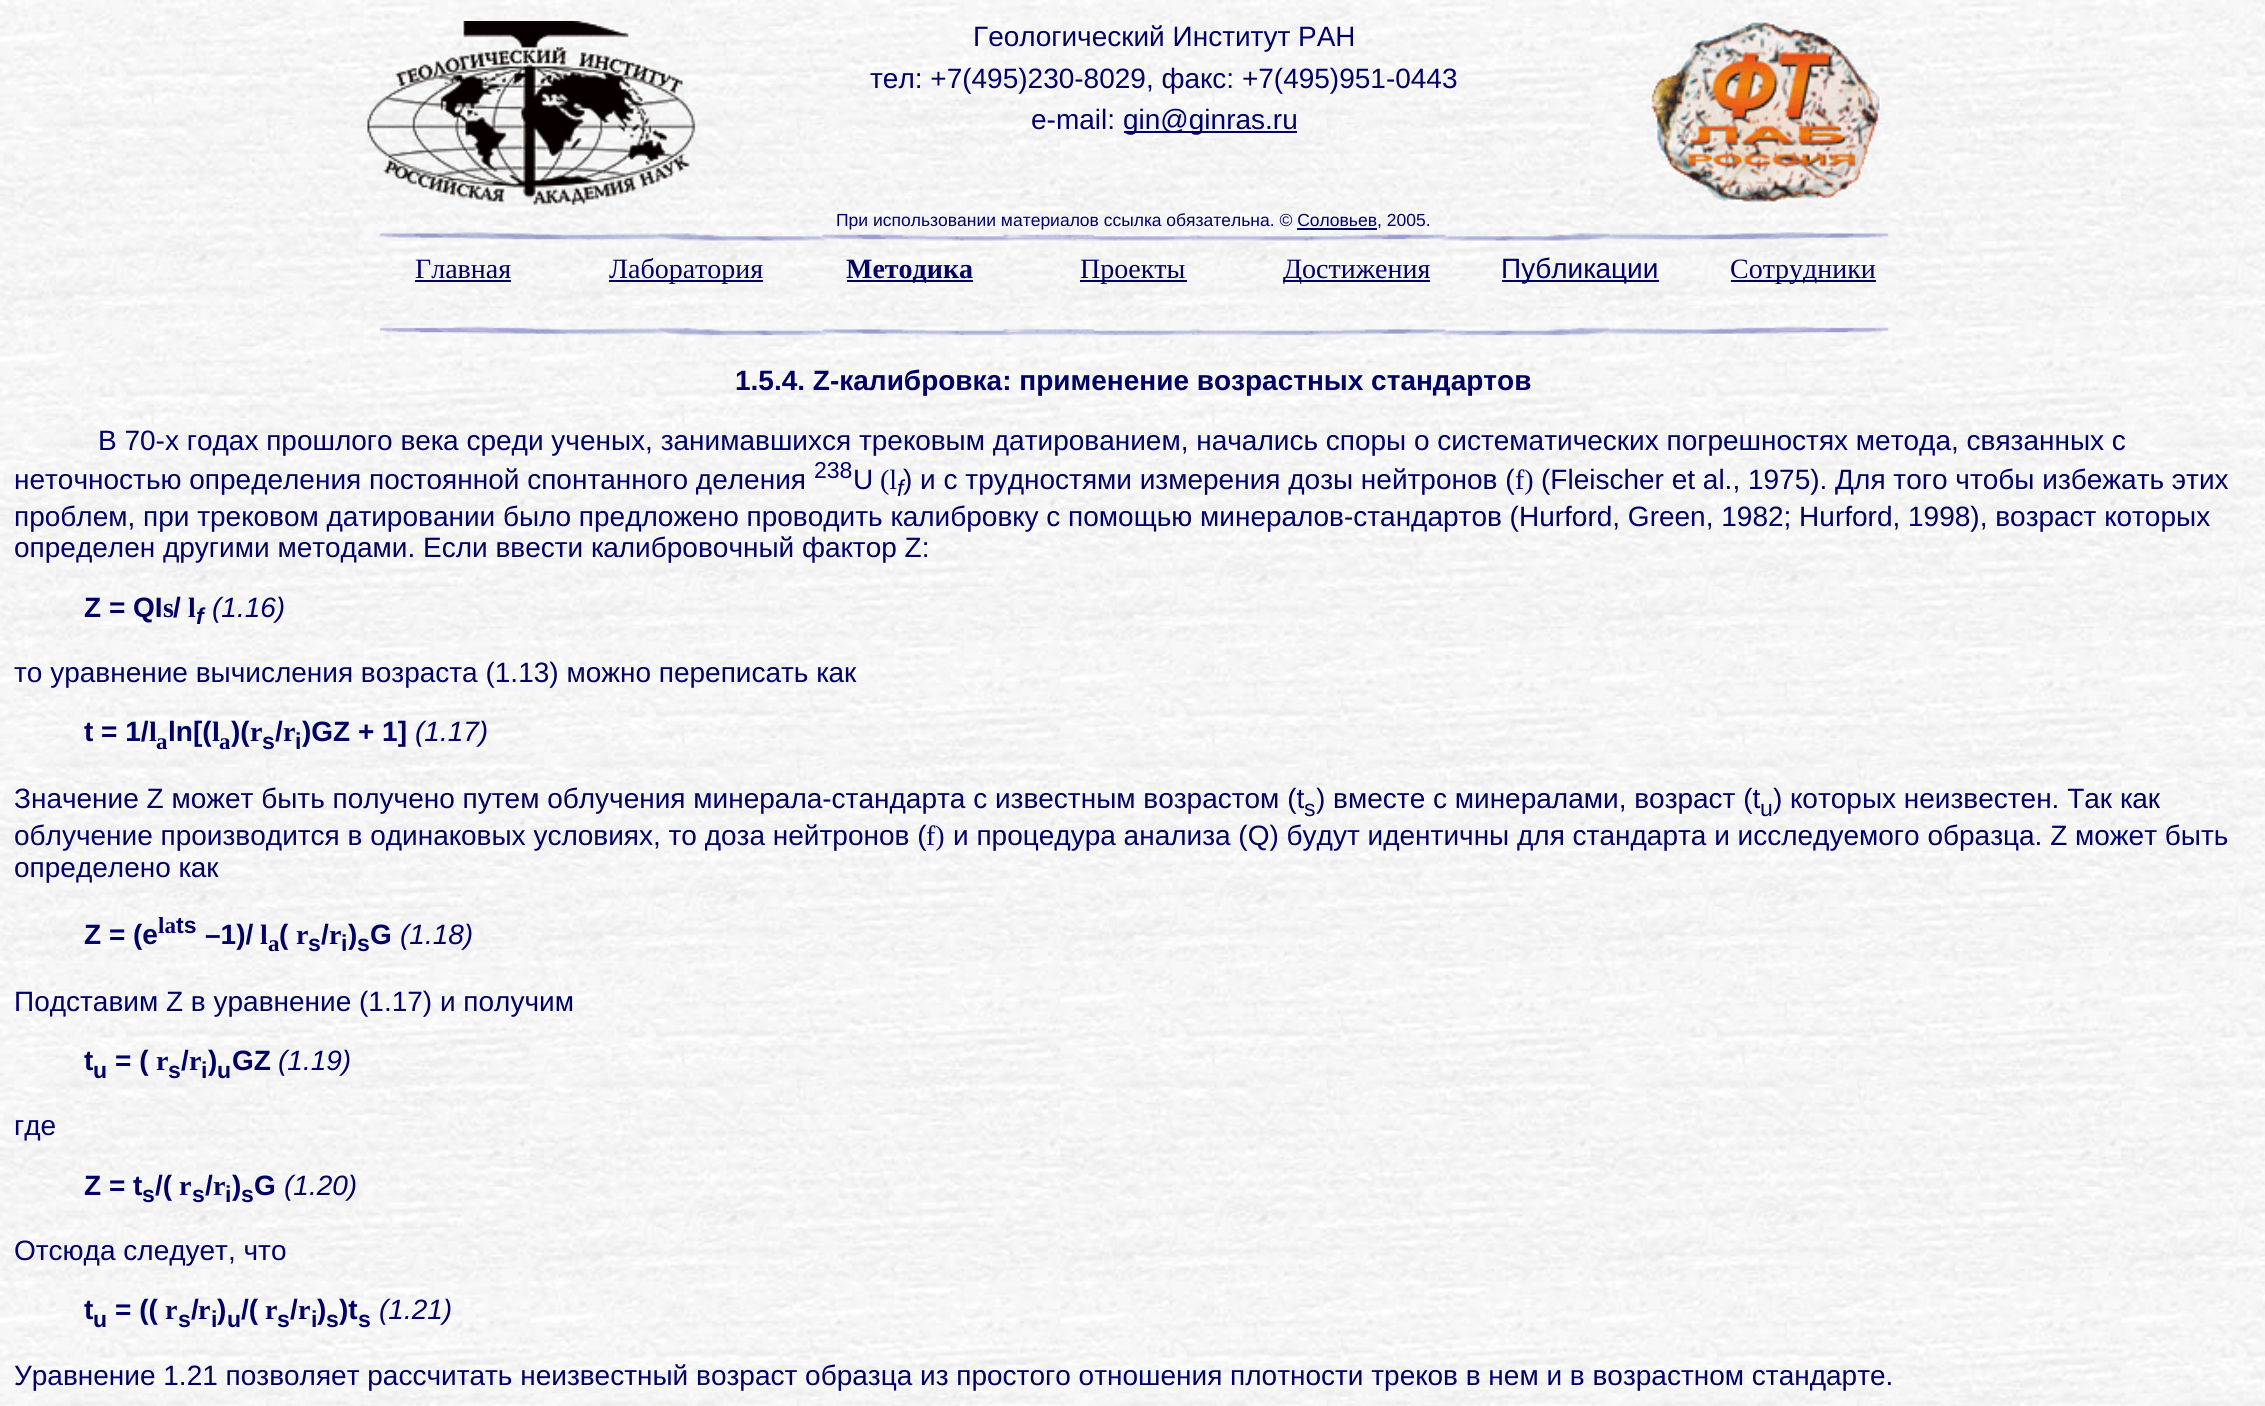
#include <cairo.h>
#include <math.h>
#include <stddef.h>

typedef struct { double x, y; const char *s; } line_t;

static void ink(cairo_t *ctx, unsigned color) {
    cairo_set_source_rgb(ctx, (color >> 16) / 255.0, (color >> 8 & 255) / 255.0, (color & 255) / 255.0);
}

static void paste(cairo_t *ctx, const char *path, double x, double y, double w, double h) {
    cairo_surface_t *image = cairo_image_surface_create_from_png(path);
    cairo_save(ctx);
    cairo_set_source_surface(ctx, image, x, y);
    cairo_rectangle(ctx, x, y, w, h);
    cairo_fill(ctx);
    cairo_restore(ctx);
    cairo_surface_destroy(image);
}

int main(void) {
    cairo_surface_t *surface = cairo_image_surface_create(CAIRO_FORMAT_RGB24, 2265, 1406);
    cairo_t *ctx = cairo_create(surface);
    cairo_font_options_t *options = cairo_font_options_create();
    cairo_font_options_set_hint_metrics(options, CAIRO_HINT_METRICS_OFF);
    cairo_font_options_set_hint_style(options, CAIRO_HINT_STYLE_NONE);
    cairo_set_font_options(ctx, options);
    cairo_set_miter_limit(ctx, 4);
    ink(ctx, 0xFFFFFF);
    cairo_paint(ctx);
    paste(ctx, "media/1.png", 0, 0, 2265, 1406);
    paste(ctx, "media/2.png", 367, 21, 330, 184);
    cairo_select_font_face(ctx, "Liberation Sans", CAIRO_FONT_SLANT_NORMAL, CAIRO_FONT_WEIGHT_NORMAL);
    cairo_set_font_size(ctx, 28);
    ink(ctx, 0x000066);
    cairo_move_to(ctx, 973, 46);
    cairo_show_text(ctx, "Геологический Институт РАН");
    paste(ctx, "media/3.png", 1650, 21, 232, 182);
    cairo_move_to(ctx, 870, 88);
    cairo_show_text(ctx, "тел: +7(495)230-8029, факс: +7(495)951-0443");
    cairo_move_to(ctx, 1031, 129);
    cairo_show_text(ctx, "e-mail:");
    cairo_rectangle(ctx, 1124, 131, 173, 2);
    cairo_fill(ctx);
    cairo_move_to(ctx, 1123, 129);
    cairo_show_text(ctx, "gin@ginras.ru");
    cairo_set_font_size(ctx, 17.5);
    cairo_move_to(ctx, 836, 226);
    cairo_show_text(ctx, "При использовании материалов ссылка обязательна. © Соловьев, 2005.");
    cairo_rectangle(ctx, 1297, 228, 80, 2);
    cairo_fill(ctx);
    paste(ctx, "media/4.png", 379, 232, 1510, 9);
    cairo_select_font_face(ctx, "Liberation Serif", CAIRO_FONT_SLANT_NORMAL, CAIRO_FONT_WEIGHT_NORMAL);
    cairo_set_font_size(ctx, 28);
    cairo_move_to(ctx, 415, 278);
    cairo_show_text(ctx, "Главная");
    cairo_rectangle(ctx, 415, 280, 96, 2);
    cairo_fill(ctx);
    cairo_rectangle(ctx, 609, 280, 154, 2);
    cairo_fill(ctx);
    cairo_move_to(ctx, 609, 278);
    cairo_show_text(ctx, "Лаборатория");
    cairo_rectangle(ctx, 847, 280, 126, 2);
    cairo_fill(ctx);
    cairo_select_font_face(ctx, "Liberation Serif", CAIRO_FONT_SLANT_NORMAL, CAIRO_FONT_WEIGHT_BOLD);
    cairo_move_to(ctx, 846, 278);
    cairo_show_text(ctx, "Методика");
    cairo_rectangle(ctx, 1080, 280, 107, 2);
    cairo_fill(ctx);
    cairo_select_font_face(ctx, "Liberation Serif", CAIRO_FONT_SLANT_NORMAL, CAIRO_FONT_WEIGHT_NORMAL);
    cairo_move_to(ctx, 1080, 278);
    cairo_show_text(ctx, "Проекты");
    cairo_rectangle(ctx, 1283, 280, 147, 2);
    cairo_fill(ctx);
    cairo_move_to(ctx, 1283, 278);
    cairo_show_text(ctx, "Достижения");
    cairo_rectangle(ctx, 1502, 280, 157, 2);
    cairo_fill(ctx);
    cairo_select_font_face(ctx, "Liberation Sans", CAIRO_FONT_SLANT_NORMAL, CAIRO_FONT_WEIGHT_NORMAL);
    cairo_move_to(ctx, 1501, 278);
    cairo_show_text(ctx, "Публикации");
    cairo_rectangle(ctx, 1731, 280, 145, 2);
    cairo_fill(ctx);
    cairo_select_font_face(ctx, "Liberation Serif", CAIRO_FONT_SLANT_NORMAL, CAIRO_FONT_WEIGHT_NORMAL);
    cairo_move_to(ctx, 1730, 278);
    cairo_show_text(ctx, "Сотрудники");
    paste(ctx, "media/5.png", 379, 326, 1510, 10);
    cairo_select_font_face(ctx, "Liberation Sans", CAIRO_FONT_SLANT_NORMAL, CAIRO_FONT_WEIGHT_BOLD);
    cairo_move_to(ctx, 735, 390);
    cairo_show_text(ctx, "1.5.4. Z-калибровка: применение возрастных стандартов");
    cairo_select_font_face(ctx, "Liberation Sans", CAIRO_FONT_SLANT_NORMAL, CAIRO_FONT_WEIGHT_NORMAL);
    cairo_move_to(ctx, 98, 450);
    cairo_show_text(ctx, "В 70-х годах прошлого века среди ученых, занимавшихся трековым датированием, начались споры о систематических погрешностях метода, связанных с");
    cairo_move_to(ctx, 14, 489);
    cairo_show_text(ctx, "неточностью определения постоянной спонтанного деления");
    cairo_set_font_size(ctx, 23);
    cairo_move_to(ctx, 814, 478);
    cairo_show_text(ctx, "238");
    cairo_set_font_size(ctx, 28);
    cairo_move_to(ctx, 853, 489);
    cairo_show_text(ctx, "U");
    cairo_select_font_face(ctx, "Liberation Serif", CAIRO_FONT_SLANT_NORMAL, CAIRO_FONT_WEIGHT_NORMAL);
    cairo_move_to(ctx, 880, 489);
    cairo_show_text(ctx, "(l");
    cairo_select_font_face(ctx, "Liberation Sans", CAIRO_FONT_SLANT_ITALIC, CAIRO_FONT_WEIGHT_NORMAL);
    cairo_set_font_size(ctx, 23);
    cairo_move_to(ctx, 897, 496);
    cairo_show_text(ctx, "f");
    cairo_select_font_face(ctx, "Liberation Sans", CAIRO_FONT_SLANT_NORMAL, CAIRO_FONT_WEIGHT_NORMAL);
    cairo_set_font_size(ctx, 28);
    cairo_move_to(ctx, 903, 489);
    cairo_show_text(ctx, ") и с трудностями измерения дозы нейтронов (");
    cairo_select_font_face(ctx, "Liberation Serif", CAIRO_FONT_SLANT_NORMAL, CAIRO_FONT_WEIGHT_NORMAL);
    cairo_move_to(ctx, 1515, 489);
    cairo_show_text(ctx, "f)");
    cairo_select_font_face(ctx, "Liberation Sans", CAIRO_FONT_SLANT_NORMAL, CAIRO_FONT_WEIGHT_NORMAL);
    {
        static const line_t items[] = {
            {1541, 489, "(Fleischer et al., 1975). Для того чтобы избежать этих"},
            {14, 526, "проблем, при трековом датировании было предложено проводить калибровку с помощью минералов-стандартов (Hurford, Green, 1982; Hurford, 1998), возраст которых"},
            {14, 557, "определен другими методами. Если ввести калибровочный фактор Z:"},
        };
        for (size_t i = 0; i < sizeof items / sizeof *items; i++) {
            cairo_move_to(ctx, items[i].x, items[i].y);
            cairo_show_text(ctx, items[i].s);
        }
    }
    cairo_select_font_face(ctx, "Liberation Sans", CAIRO_FONT_SLANT_NORMAL, CAIRO_FONT_WEIGHT_BOLD);
    cairo_move_to(ctx, 84, 617);
    cairo_show_text(ctx, "Z = QI");
    cairo_select_font_face(ctx, "Liberation Serif", CAIRO_FONT_SLANT_NORMAL, CAIRO_FONT_WEIGHT_BOLD);
    cairo_move_to(ctx, 163, 617);
    cairo_show_text(ctx, "s");
    cairo_select_font_face(ctx, "Liberation Sans", CAIRO_FONT_SLANT_NORMAL, CAIRO_FONT_WEIGHT_BOLD);
    cairo_move_to(ctx, 173, 617);
    cairo_show_text(ctx, "/");
    cairo_select_font_face(ctx, "Liberation Serif", CAIRO_FONT_SLANT_NORMAL, CAIRO_FONT_WEIGHT_BOLD);
    cairo_move_to(ctx, 188, 617);
    cairo_show_text(ctx, "l");
    cairo_select_font_face(ctx, "Liberation Sans", CAIRO_FONT_SLANT_ITALIC, CAIRO_FONT_WEIGHT_BOLD);
    cairo_set_font_size(ctx, 23);
    cairo_move_to(ctx, 196, 624);
    cairo_show_text(ctx, "f");
    cairo_select_font_face(ctx, "Liberation Sans", CAIRO_FONT_SLANT_ITALIC, CAIRO_FONT_WEIGHT_NORMAL);
    cairo_set_font_size(ctx, 28);
    cairo_move_to(ctx, 212, 617);
    cairo_show_text(ctx, "(1.16)");
    cairo_select_font_face(ctx, "Liberation Sans", CAIRO_FONT_SLANT_NORMAL, CAIRO_FONT_WEIGHT_NORMAL);
    cairo_move_to(ctx, 14, 682);
    cairo_show_text(ctx, "то уравнение вычисления возраста (1.13) можно переписать как");
    cairo_select_font_face(ctx, "Liberation Sans", CAIRO_FONT_SLANT_NORMAL, CAIRO_FONT_WEIGHT_BOLD);
    cairo_move_to(ctx, 84, 741);
    cairo_show_text(ctx, "t = 1/");
    cairo_select_font_face(ctx, "Liberation Serif", CAIRO_FONT_SLANT_NORMAL, CAIRO_FONT_WEIGHT_BOLD);
    cairo_move_to(ctx, 149, 741);
    cairo_show_text(ctx, "l");
    cairo_set_font_size(ctx, 23);
    cairo_move_to(ctx, 156, 749);
    cairo_show_text(ctx, "a");
    cairo_select_font_face(ctx, "Liberation Sans", CAIRO_FONT_SLANT_NORMAL, CAIRO_FONT_WEIGHT_BOLD);
    cairo_set_font_size(ctx, 28);
    cairo_move_to(ctx, 168, 741);
    cairo_show_text(ctx, "ln[(");
    cairo_select_font_face(ctx, "Liberation Serif", CAIRO_FONT_SLANT_NORMAL, CAIRO_FONT_WEIGHT_BOLD);
    cairo_move_to(ctx, 212, 741);
    cairo_show_text(ctx, "l");
    cairo_set_font_size(ctx, 23);
    cairo_move_to(ctx, 219, 749);
    cairo_show_text(ctx, "a");
    cairo_select_font_face(ctx, "Liberation Sans", CAIRO_FONT_SLANT_NORMAL, CAIRO_FONT_WEIGHT_BOLD);
    cairo_set_font_size(ctx, 28);
    cairo_move_to(ctx, 231, 741);
    cairo_show_text(ctx, ")(");
    cairo_select_font_face(ctx, "Liberation Serif", CAIRO_FONT_SLANT_NORMAL, CAIRO_FONT_WEIGHT_BOLD);
    cairo_move_to(ctx, 250, 741);
    cairo_show_text(ctx, "r");
    cairo_select_font_face(ctx, "Liberation Sans", CAIRO_FONT_SLANT_NORMAL, CAIRO_FONT_WEIGHT_BOLD);
    cairo_set_font_size(ctx, 23);
    cairo_move_to(ctx, 262, 749);
    cairo_show_text(ctx, "s");
    cairo_set_font_size(ctx, 28);
    cairo_move_to(ctx, 275, 741);
    cairo_show_text(ctx, "/");
    cairo_select_font_face(ctx, "Liberation Serif", CAIRO_FONT_SLANT_NORMAL, CAIRO_FONT_WEIGHT_BOLD);
    cairo_move_to(ctx, 283, 741);
    cairo_show_text(ctx, "r");
    cairo_select_font_face(ctx, "Liberation Sans", CAIRO_FONT_SLANT_NORMAL, CAIRO_FONT_WEIGHT_BOLD);
    cairo_set_font_size(ctx, 23);
    cairo_move_to(ctx, 295, 749);
    cairo_show_text(ctx, "i");
    cairo_set_font_size(ctx, 28);
    cairo_move_to(ctx, 302, 741);
    cairo_show_text(ctx, ")GZ + 1]");
    cairo_select_font_face(ctx, "Liberation Sans", CAIRO_FONT_SLANT_ITALIC, CAIRO_FONT_WEIGHT_NORMAL);
    cairo_move_to(ctx, 415, 741);
    cairo_show_text(ctx, "(1.17)");
    cairo_select_font_face(ctx, "Liberation Sans", CAIRO_FONT_SLANT_NORMAL, CAIRO_FONT_WEIGHT_NORMAL);
    cairo_move_to(ctx, 14, 808);
    cairo_show_text(ctx, "Значение Z может быть получено путем облучения минерала-стандарта с известным возрастом (t");
    cairo_set_font_size(ctx, 23);
    cairo_move_to(ctx, 1304, 816);
    cairo_show_text(ctx, "s");
    cairo_set_font_size(ctx, 28);
    cairo_move_to(ctx, 1316, 808);
    cairo_show_text(ctx, ") вместе с минералами, возраст (t");
    cairo_set_font_size(ctx, 23);
    cairo_move_to(ctx, 1760, 816);
    cairo_show_text(ctx, "u");
    cairo_set_font_size(ctx, 28);
    cairo_move_to(ctx, 1773, 808);
    cairo_show_text(ctx, ") которых неизвестен. Так как");
    cairo_move_to(ctx, 14, 845);
    cairo_show_text(ctx, "облучение производится в одинаковых условиях, то доза нейтронов (");
    cairo_select_font_face(ctx, "Liberation Serif", CAIRO_FONT_SLANT_NORMAL, CAIRO_FONT_WEIGHT_NORMAL);
    cairo_move_to(ctx, 926, 845);
    cairo_show_text(ctx, "f)");
    cairo_select_font_face(ctx, "Liberation Sans", CAIRO_FONT_SLANT_NORMAL, CAIRO_FONT_WEIGHT_NORMAL);
    cairo_move_to(ctx, 953, 845);
    cairo_show_text(ctx, "и процедура анализа (Q) будут идентичны для стандарта и исследуемого образца. Z может быть");
    cairo_move_to(ctx, 14, 877);
    cairo_show_text(ctx, "определено как");
    cairo_select_font_face(ctx, "Liberation Sans", CAIRO_FONT_SLANT_NORMAL, CAIRO_FONT_WEIGHT_BOLD);
    cairo_move_to(ctx, 84, 944);
    cairo_show_text(ctx, "Z = (e");
    cairo_select_font_face(ctx, "Liberation Serif", CAIRO_FONT_SLANT_NORMAL, CAIRO_FONT_WEIGHT_BOLD);
    cairo_set_font_size(ctx, 23);
    cairo_move_to(ctx, 158, 933);
    cairo_show_text(ctx, "la");
    cairo_select_font_face(ctx, "Liberation Sans", CAIRO_FONT_SLANT_NORMAL, CAIRO_FONT_WEIGHT_BOLD);
    cairo_move_to(ctx, 176, 933);
    cairo_show_text(ctx, "ts");
    cairo_set_font_size(ctx, 28);
    cairo_move_to(ctx, 205, 944);
    cairo_show_text(ctx, "–1)/");
    cairo_select_font_face(ctx, "Liberation Serif", CAIRO_FONT_SLANT_NORMAL, CAIRO_FONT_WEIGHT_BOLD);
    cairo_move_to(ctx, 260, 944);
    cairo_show_text(ctx, "l");
    cairo_set_font_size(ctx, 23);
    cairo_move_to(ctx, 268, 951);
    cairo_show_text(ctx, "a");
    cairo_select_font_face(ctx, "Liberation Sans", CAIRO_FONT_SLANT_NORMAL, CAIRO_FONT_WEIGHT_BOLD);
    cairo_set_font_size(ctx, 28);
    cairo_move_to(ctx, 279, 944);
    cairo_show_text(ctx, "(");
    cairo_select_font_face(ctx, "Liberation Serif", CAIRO_FONT_SLANT_NORMAL, CAIRO_FONT_WEIGHT_BOLD);
    cairo_move_to(ctx, 296, 944);
    cairo_show_text(ctx, "r");
    cairo_select_font_face(ctx, "Liberation Sans", CAIRO_FONT_SLANT_NORMAL, CAIRO_FONT_WEIGHT_BOLD);
    cairo_set_font_size(ctx, 23);
    cairo_move_to(ctx, 308, 951);
    cairo_show_text(ctx, "s");
    cairo_set_font_size(ctx, 28);
    cairo_move_to(ctx, 321, 944);
    cairo_show_text(ctx, "/");
    cairo_select_font_face(ctx, "Liberation Serif", CAIRO_FONT_SLANT_NORMAL, CAIRO_FONT_WEIGHT_BOLD);
    cairo_move_to(ctx, 329, 944);
    cairo_show_text(ctx, "r");
    cairo_select_font_face(ctx, "Liberation Sans", CAIRO_FONT_SLANT_NORMAL, CAIRO_FONT_WEIGHT_BOLD);
    cairo_set_font_size(ctx, 23);
    cairo_move_to(ctx, 341, 951);
    cairo_show_text(ctx, "i");
    cairo_set_font_size(ctx, 28);
    cairo_move_to(ctx, 348, 944);
    cairo_show_text(ctx, ")");
    cairo_set_font_size(ctx, 23);
    cairo_move_to(ctx, 357, 951);
    cairo_show_text(ctx, "s");
    cairo_set_font_size(ctx, 28);
    cairo_move_to(ctx, 370, 944);
    cairo_show_text(ctx, "G");
    cairo_select_font_face(ctx, "Liberation Sans", CAIRO_FONT_SLANT_ITALIC, CAIRO_FONT_WEIGHT_NORMAL);
    cairo_move_to(ctx, 400, 944);
    cairo_show_text(ctx, "(1.18)");
    cairo_select_font_face(ctx, "Liberation Sans", CAIRO_FONT_SLANT_NORMAL, CAIRO_FONT_WEIGHT_NORMAL);
    cairo_move_to(ctx, 14, 1011);
    cairo_show_text(ctx, "Подставим Z в уравнение (1.17) и получим");
    cairo_select_font_face(ctx, "Liberation Sans", CAIRO_FONT_SLANT_NORMAL, CAIRO_FONT_WEIGHT_BOLD);
    cairo_move_to(ctx, 84, 1070);
    cairo_show_text(ctx, "t");
    cairo_set_font_size(ctx, 23);
    cairo_move_to(ctx, 93, 1078);
    cairo_show_text(ctx, "u");
    cairo_set_font_size(ctx, 28);
    cairo_move_to(ctx, 115, 1070);
    cairo_show_text(ctx, "= (");
    cairo_select_font_face(ctx, "Liberation Serif", CAIRO_FONT_SLANT_NORMAL, CAIRO_FONT_WEIGHT_BOLD);
    cairo_move_to(ctx, 156, 1070);
    cairo_show_text(ctx, "r");
    cairo_select_font_face(ctx, "Liberation Sans", CAIRO_FONT_SLANT_NORMAL, CAIRO_FONT_WEIGHT_BOLD);
    cairo_set_font_size(ctx, 23);
    cairo_move_to(ctx, 168, 1078);
    cairo_show_text(ctx, "s");
    cairo_set_font_size(ctx, 28);
    cairo_move_to(ctx, 181, 1070);
    cairo_show_text(ctx, "/");
    cairo_select_font_face(ctx, "Liberation Serif", CAIRO_FONT_SLANT_NORMAL, CAIRO_FONT_WEIGHT_BOLD);
    cairo_move_to(ctx, 189, 1070);
    cairo_show_text(ctx, "r");
    cairo_select_font_face(ctx, "Liberation Sans", CAIRO_FONT_SLANT_NORMAL, CAIRO_FONT_WEIGHT_BOLD);
    cairo_set_font_size(ctx, 23);
    cairo_move_to(ctx, 201, 1078);
    cairo_show_text(ctx, "i");
    cairo_set_font_size(ctx, 28);
    cairo_move_to(ctx, 208, 1070);
    cairo_show_text(ctx, ")");
    cairo_set_font_size(ctx, 23);
    cairo_move_to(ctx, 217, 1078);
    cairo_show_text(ctx, "u");
    cairo_set_font_size(ctx, 28);
    cairo_move_to(ctx, 232, 1070);
    cairo_show_text(ctx, "GZ");
    cairo_select_font_face(ctx, "Liberation Sans", CAIRO_FONT_SLANT_ITALIC, CAIRO_FONT_WEIGHT_NORMAL);
    cairo_move_to(ctx, 278, 1070);
    cairo_show_text(ctx, "(1.19)");
    cairo_select_font_face(ctx, "Liberation Sans", CAIRO_FONT_SLANT_NORMAL, CAIRO_FONT_WEIGHT_NORMAL);
    cairo_move_to(ctx, 14, 1135);
    cairo_show_text(ctx, "где");
    cairo_select_font_face(ctx, "Liberation Sans", CAIRO_FONT_SLANT_NORMAL, CAIRO_FONT_WEIGHT_BOLD);
    cairo_move_to(ctx, 84, 1195);
    cairo_show_text(ctx, "Z = t");
    cairo_set_font_size(ctx, 23);
    cairo_move_to(ctx, 142, 1202);
    cairo_show_text(ctx, "s");
    cairo_set_font_size(ctx, 28);
    cairo_move_to(ctx, 155, 1195);
    cairo_show_text(ctx, "/(");
    cairo_select_font_face(ctx, "Liberation Serif", CAIRO_FONT_SLANT_NORMAL, CAIRO_FONT_WEIGHT_BOLD);
    cairo_move_to(ctx, 179, 1195);
    cairo_show_text(ctx, "r");
    cairo_select_font_face(ctx, "Liberation Sans", CAIRO_FONT_SLANT_NORMAL, CAIRO_FONT_WEIGHT_BOLD);
    cairo_set_font_size(ctx, 23);
    cairo_move_to(ctx, 192, 1202);
    cairo_show_text(ctx, "s");
    cairo_set_font_size(ctx, 28);
    cairo_move_to(ctx, 205, 1195);
    cairo_show_text(ctx, "/");
    cairo_select_font_face(ctx, "Liberation Serif", CAIRO_FONT_SLANT_NORMAL, CAIRO_FONT_WEIGHT_BOLD);
    cairo_move_to(ctx, 213, 1195);
    cairo_show_text(ctx, "r");
    cairo_select_font_face(ctx, "Liberation Sans", CAIRO_FONT_SLANT_NORMAL, CAIRO_FONT_WEIGHT_BOLD);
    cairo_set_font_size(ctx, 23);
    cairo_move_to(ctx, 225, 1202);
    cairo_show_text(ctx, "i");
    cairo_set_font_size(ctx, 28);
    cairo_move_to(ctx, 232, 1195);
    cairo_show_text(ctx, ")");
    cairo_set_font_size(ctx, 23);
    cairo_move_to(ctx, 241, 1202);
    cairo_show_text(ctx, "s");
    cairo_set_font_size(ctx, 28);
    cairo_move_to(ctx, 254, 1195);
    cairo_show_text(ctx, "G");
    cairo_select_font_face(ctx, "Liberation Sans", CAIRO_FONT_SLANT_ITALIC, CAIRO_FONT_WEIGHT_NORMAL);
    cairo_move_to(ctx, 284, 1195);
    cairo_show_text(ctx, "(1.20)");
    cairo_select_font_face(ctx, "Liberation Sans", CAIRO_FONT_SLANT_NORMAL, CAIRO_FONT_WEIGHT_NORMAL);
    cairo_move_to(ctx, 14, 1260);
    cairo_show_text(ctx, "Отсюда следует, что");
    cairo_select_font_face(ctx, "Liberation Sans", CAIRO_FONT_SLANT_NORMAL, CAIRO_FONT_WEIGHT_BOLD);
    cairo_move_to(ctx, 84, 1319);
    cairo_show_text(ctx, "t");
    cairo_set_font_size(ctx, 23);
    cairo_move_to(ctx, 93, 1327);
    cairo_show_text(ctx, "u");
    cairo_set_font_size(ctx, 28);
    cairo_move_to(ctx, 115, 1319);
    cairo_show_text(ctx, "= ((");
    cairo_select_font_face(ctx, "Liberation Serif", CAIRO_FONT_SLANT_NORMAL, CAIRO_FONT_WEIGHT_BOLD);
    cairo_move_to(ctx, 165, 1319);
    cairo_show_text(ctx, "r");
    cairo_select_font_face(ctx, "Liberation Sans", CAIRO_FONT_SLANT_NORMAL, CAIRO_FONT_WEIGHT_BOLD);
    cairo_set_font_size(ctx, 23);
    cairo_move_to(ctx, 178, 1327);
    cairo_show_text(ctx, "s");
    cairo_set_font_size(ctx, 28);
    cairo_move_to(ctx, 191, 1319);
    cairo_show_text(ctx, "/");
    cairo_select_font_face(ctx, "Liberation Serif", CAIRO_FONT_SLANT_NORMAL, CAIRO_FONT_WEIGHT_BOLD);
    cairo_move_to(ctx, 198, 1319);
    cairo_show_text(ctx, "r");
    cairo_select_font_face(ctx, "Liberation Sans", CAIRO_FONT_SLANT_NORMAL, CAIRO_FONT_WEIGHT_BOLD);
    cairo_set_font_size(ctx, 23);
    cairo_move_to(ctx, 211, 1327);
    cairo_show_text(ctx, "i");
    cairo_set_font_size(ctx, 28);
    cairo_move_to(ctx, 217, 1319);
    cairo_show_text(ctx, ")");
    cairo_set_font_size(ctx, 23);
    cairo_move_to(ctx, 227, 1327);
    cairo_show_text(ctx, "u");
    cairo_set_font_size(ctx, 28);
    cairo_move_to(ctx, 241, 1319);
    cairo_show_text(ctx, "/(");
    cairo_select_font_face(ctx, "Liberation Serif", CAIRO_FONT_SLANT_NORMAL, CAIRO_FONT_WEIGHT_BOLD);
    cairo_move_to(ctx, 265, 1319);
    cairo_show_text(ctx, "r");
    cairo_select_font_face(ctx, "Liberation Sans", CAIRO_FONT_SLANT_NORMAL, CAIRO_FONT_WEIGHT_BOLD);
    cairo_set_font_size(ctx, 23);
    cairo_move_to(ctx, 277, 1327);
    cairo_show_text(ctx, "s");
    cairo_set_font_size(ctx, 28);
    cairo_move_to(ctx, 290, 1319);
    cairo_show_text(ctx, "/");
    cairo_select_font_face(ctx, "Liberation Serif", CAIRO_FONT_SLANT_NORMAL, CAIRO_FONT_WEIGHT_BOLD);
    cairo_move_to(ctx, 298, 1319);
    cairo_show_text(ctx, "r");
    cairo_select_font_face(ctx, "Liberation Sans", CAIRO_FONT_SLANT_NORMAL, CAIRO_FONT_WEIGHT_BOLD);
    cairo_set_font_size(ctx, 23);
    cairo_move_to(ctx, 311, 1327);
    cairo_show_text(ctx, "i");
    cairo_set_font_size(ctx, 28);
    cairo_move_to(ctx, 317, 1319);
    cairo_show_text(ctx, ")");
    cairo_set_font_size(ctx, 23);
    cairo_move_to(ctx, 326, 1327);
    cairo_show_text(ctx, "s");
    cairo_set_font_size(ctx, 28);
    cairo_move_to(ctx, 339, 1319);
    cairo_show_text(ctx, ")t");
    cairo_set_font_size(ctx, 23);
    cairo_move_to(ctx, 358, 1327);
    cairo_show_text(ctx, "s");
    cairo_select_font_face(ctx, "Liberation Sans", CAIRO_FONT_SLANT_ITALIC, CAIRO_FONT_WEIGHT_NORMAL);
    cairo_set_font_size(ctx, 28);
    cairo_move_to(ctx, 379, 1319);
    cairo_show_text(ctx, "(1.21)");
    cairo_select_font_face(ctx, "Liberation Sans", CAIRO_FONT_SLANT_NORMAL, CAIRO_FONT_WEIGHT_NORMAL);
    cairo_move_to(ctx, 14, 1385);
    cairo_show_text(ctx, "Уравнение 1.21 позволяет рассчитать неизвестный возраст образца из простого отношения плотности треков в нем и в возрастном стандарте.");
    cairo_surface_write_to_png(surface, "image.png");
    cairo_font_options_destroy(options);
    cairo_destroy(ctx);
    cairo_surface_destroy(surface);
    return 0;
}
